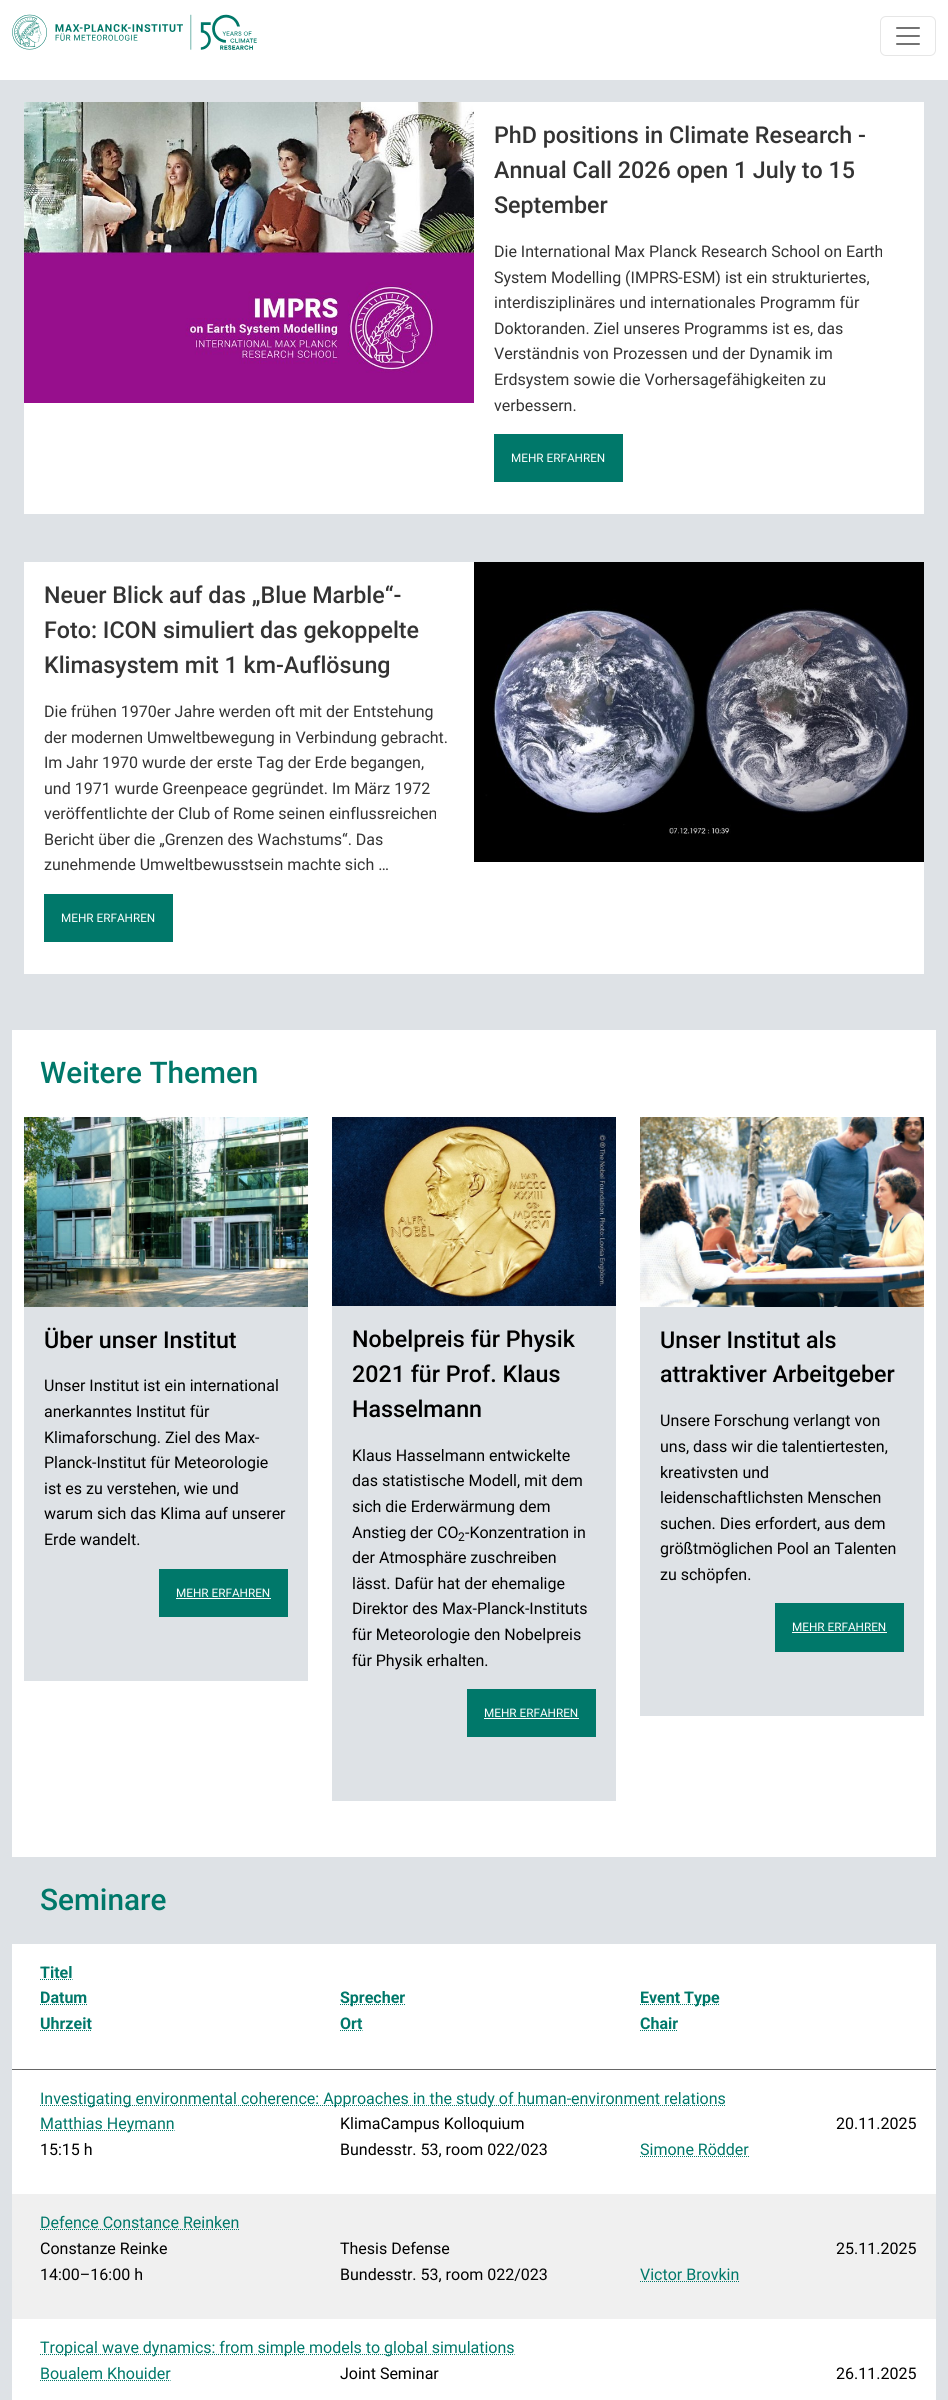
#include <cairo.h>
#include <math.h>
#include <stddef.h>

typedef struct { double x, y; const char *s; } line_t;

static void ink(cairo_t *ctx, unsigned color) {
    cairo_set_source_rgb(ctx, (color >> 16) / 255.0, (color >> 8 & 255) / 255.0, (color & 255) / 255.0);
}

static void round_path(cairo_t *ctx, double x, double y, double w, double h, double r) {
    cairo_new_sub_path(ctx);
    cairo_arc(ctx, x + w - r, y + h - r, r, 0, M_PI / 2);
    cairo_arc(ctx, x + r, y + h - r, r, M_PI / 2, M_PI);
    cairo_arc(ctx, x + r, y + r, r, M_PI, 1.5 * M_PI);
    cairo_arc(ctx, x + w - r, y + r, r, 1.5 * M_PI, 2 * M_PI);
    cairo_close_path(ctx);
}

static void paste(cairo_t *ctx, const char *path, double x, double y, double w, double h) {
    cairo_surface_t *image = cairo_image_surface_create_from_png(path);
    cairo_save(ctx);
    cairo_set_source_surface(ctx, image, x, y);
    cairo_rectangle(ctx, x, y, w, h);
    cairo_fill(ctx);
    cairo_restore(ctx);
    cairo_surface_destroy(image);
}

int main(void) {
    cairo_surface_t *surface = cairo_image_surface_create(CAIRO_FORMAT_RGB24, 948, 2400);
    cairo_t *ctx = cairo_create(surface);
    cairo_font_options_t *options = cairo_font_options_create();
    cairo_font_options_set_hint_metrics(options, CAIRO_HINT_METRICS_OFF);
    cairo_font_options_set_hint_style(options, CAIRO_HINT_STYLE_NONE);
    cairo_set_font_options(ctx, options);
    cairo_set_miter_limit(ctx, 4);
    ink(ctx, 0xDEE2E6);
    cairo_paint(ctx);
    ink(ctx, 0xFFFFFF);
    cairo_rectangle(ctx, 0, 0, 948, 80);
    cairo_fill(ctx);
    paste(ctx, "media/1.png", 12, 14, 245, 36);
    round_path(ctx, 880.5, 16.5, 55, 39, 5.5);
    ink(ctx, 0xE6E6E6);
    cairo_set_line_width(ctx, 1);
    cairo_stroke(ctx);
    paste(ctx, "media/2.png", 896, 27, 24, 18);
    ink(ctx, 0xFFFFFF);
    cairo_rectangle(ctx, 24, 102, 900, 412);
    cairo_fill(ctx);
    paste(ctx, "media/3.png", 24, 102, 450, 301);
    cairo_select_font_face(ctx, "Roboto Medium", CAIRO_FONT_SLANT_NORMAL, CAIRO_FONT_WEIGHT_NORMAL);
    cairo_set_font_size(ctx, 23.25);
    ink(ctx, 0x333333);
    {
        static const line_t items[] = {
            {494, 143, "PhD positions in Climate Research -"},
            {494, 178, "Annual Call 2026 open 1 July to 15"},
            {494, 213, "September"},
        };
        for (size_t i = 0; i < sizeof items / sizeof *items; i++) {
            cairo_move_to(ctx, items[i].x, items[i].y);
            cairo_show_text(ctx, items[i].s);
        }
    }
    cairo_select_font_face(ctx, "Roboto", CAIRO_FONT_SLANT_NORMAL, CAIRO_FONT_WEIGHT_NORMAL);
    cairo_set_font_size(ctx, 16);
    {
        static const line_t items[] = {
            {494, 257, "Die International Max Planck Research School on Earth"},
            {494, 283, "System Modelling (IMPRS-ESM) ist ein strukturiertes,"},
            {494, 308, "interdisziplinäres und internationales Programm für"},
            {494, 334, "Doktoranden. Ziel unseres Programms ist es, das"},
            {494, 359, "Verständnis von Prozessen und der Dynamik im"},
            {494, 385, "Erdsystem sowie die Vorhersagefähigkeiten zu"},
            {494, 411, "verbessern."},
        };
        for (size_t i = 0; i < sizeof items / sizeof *items; i++) {
            cairo_move_to(ctx, items[i].x, items[i].y);
            cairo_show_text(ctx, items[i].s);
        }
    }
    ink(ctx, 0x00786A);
    cairo_rectangle(ctx, 494, 434, 129, 48);
    cairo_fill(ctx);
    cairo_set_font_size(ctx, 11.75);
    ink(ctx, 0xFFFFFF);
    cairo_move_to(ctx, 511, 462);
    cairo_show_text(ctx, "MEHR ERFAHREN");
    cairo_rectangle(ctx, 24, 562, 900, 412);
    cairo_fill(ctx);
    cairo_select_font_face(ctx, "Roboto Medium", CAIRO_FONT_SLANT_NORMAL, CAIRO_FONT_WEIGHT_NORMAL);
    cairo_set_font_size(ctx, 23.25);
    ink(ctx, 0x333333);
    {
        static const line_t items[] = {
            {44, 603, "Neuer Blick auf das „Blue Marble“-"},
            {44, 638, "Foto: ICON simuliert das gekoppelte"},
            {44, 673, "Klimasystem mit 1 km-Auflösung"},
        };
        for (size_t i = 0; i < sizeof items / sizeof *items; i++) {
            cairo_move_to(ctx, items[i].x, items[i].y);
            cairo_show_text(ctx, items[i].s);
        }
    }
    cairo_select_font_face(ctx, "Roboto", CAIRO_FONT_SLANT_NORMAL, CAIRO_FONT_WEIGHT_NORMAL);
    cairo_set_font_size(ctx, 16);
    {
        static const line_t items[] = {
            {44, 717, "Die frühen 1970er Jahre werden oft mit der Entstehung"},
            {44, 743, "der modernen Umweltbewegung in Verbindung gebracht."},
            {44, 768, "Im Jahr 1970 wurde der erste Tag der Erde begangen,"},
            {44, 794, "und 1971 wurde Greenpeace gegründet. Im März 1972"},
            {44, 819, "veröffentlichte der Club of Rome seinen einflussreichen"},
            {44, 845, "Bericht über die „Grenzen des Wachstums“. Das"},
            {44, 870, "zunehmende Umweltbewusstsein machte sich …"},
        };
        for (size_t i = 0; i < sizeof items / sizeof *items; i++) {
            cairo_move_to(ctx, items[i].x, items[i].y);
            cairo_show_text(ctx, items[i].s);
        }
    }
    ink(ctx, 0x00786A);
    cairo_rectangle(ctx, 44, 894, 129, 48);
    cairo_fill(ctx);
    cairo_set_font_size(ctx, 11.75);
    ink(ctx, 0xFFFFFF);
    cairo_move_to(ctx, 61, 922);
    cairo_show_text(ctx, "MEHR ERFAHREN");
    paste(ctx, "media/4.png", 474, 562, 450, 300);
    cairo_rectangle(ctx, 12, 1030, 924, 827);
    cairo_fill(ctx);
    cairo_select_font_face(ctx, "Roboto Medium", CAIRO_FONT_SLANT_NORMAL, CAIRO_FONT_WEIGHT_NORMAL);
    cairo_set_font_size(ctx, 29.75);
    ink(ctx, 0x00786A);
    cairo_move_to(ctx, 40, 1083);
    cairo_show_text(ctx, "Weitere Themen");
    ink(ctx, 0xDEE2E6);
    cairo_rectangle(ctx, 24, 1307, 284, 374);
    cairo_fill(ctx);
    paste(ctx, "media/5.png", 24, 1117, 284, 190);
    cairo_set_font_size(ctx, 23.25);
    ink(ctx, 0x000000);
    cairo_move_to(ctx, 44, 1348);
    cairo_show_text(ctx, "Über unser Institut");
    cairo_select_font_face(ctx, "Roboto", CAIRO_FONT_SLANT_NORMAL, CAIRO_FONT_WEIGHT_NORMAL);
    cairo_set_font_size(ctx, 16);
    {
        static const line_t items[] = {
            {44, 1391, "Unser Institut ist ein international"},
            {44, 1417, "anerkanntes Institut für"},
            {44, 1443, "Klimaforschung. Ziel des Max-"},
            {44, 1468, "Planck-Institut für Meteorologie"},
            {44, 1494, "ist es zu verstehen, wie und"},
            {44, 1519, "warum sich das Klima auf unserer"},
            {44, 1545, "Erde wandelt."},
        };
        for (size_t i = 0; i < sizeof items / sizeof *items; i++) {
            cairo_move_to(ctx, items[i].x, items[i].y);
            cairo_show_text(ctx, items[i].s);
        }
    }
    ink(ctx, 0x00786A);
    cairo_rectangle(ctx, 159, 1569, 129, 48);
    cairo_fill(ctx);
    cairo_set_font_size(ctx, 11.75);
    ink(ctx, 0xFFFFFF);
    cairo_move_to(ctx, 176, 1597);
    cairo_show_text(ctx, "MEHR ERFAHREN");
    cairo_rectangle(ctx, 176, 1598, 95, 1);
    cairo_fill(ctx);
    ink(ctx, 0xDEE2E6);
    cairo_rectangle(ctx, 332, 1306, 284, 495);
    cairo_fill(ctx);
    paste(ctx, "media/6.png", 332, 1117, 284, 189);
    cairo_select_font_face(ctx, "Roboto Medium", CAIRO_FONT_SLANT_NORMAL, CAIRO_FONT_WEIGHT_NORMAL);
    cairo_set_font_size(ctx, 23.25);
    ink(ctx, 0x000000);
    {
        static const line_t items[] = {
            {352, 1347, "Nobelpreis für Physik"},
            {352, 1382, "2021 für Prof. Klaus"},
            {352, 1417, "Hasselmann"},
        };
        for (size_t i = 0; i < sizeof items / sizeof *items; i++) {
            cairo_move_to(ctx, items[i].x, items[i].y);
            cairo_show_text(ctx, items[i].s);
        }
    }
    cairo_select_font_face(ctx, "Roboto", CAIRO_FONT_SLANT_NORMAL, CAIRO_FONT_WEIGHT_NORMAL);
    cairo_set_font_size(ctx, 16);
    {
        static const line_t items[] = {
            {352, 1461, "Klaus Hasselmann entwickelte"},
            {352, 1486, "das statistische Modell, mit dem"},
            {352, 1512, "sich die Erderwärmung dem"},
            {352, 1538, "Anstieg der CO"},
        };
        for (size_t i = 0; i < sizeof items / sizeof *items; i++) {
            cairo_move_to(ctx, items[i].x, items[i].y);
            cairo_show_text(ctx, items[i].s);
        }
    }
    cairo_set_font_size(ctx, 12);
    cairo_move_to(ctx, 458, 1541);
    cairo_show_text(ctx, "2");
    cairo_set_font_size(ctx, 16);
    {
        static const line_t items[] = {
            {465, 1538, "-Konzentration in"},
            {352, 1563, "der Atmosphäre zuschreiben"},
            {352, 1589, "lässt. Dafür hat der ehemalige"},
            {352, 1614, "Direktor des Max-Planck-Instituts"},
            {352, 1640, "für Meteorologie den Nobelpreis"},
            {352, 1666, "für Physik erhalten."},
        };
        for (size_t i = 0; i < sizeof items / sizeof *items; i++) {
            cairo_move_to(ctx, items[i].x, items[i].y);
            cairo_show_text(ctx, items[i].s);
        }
    }
    ink(ctx, 0x00786A);
    cairo_rectangle(ctx, 467, 1689, 129, 48);
    cairo_fill(ctx);
    cairo_set_font_size(ctx, 11.75);
    ink(ctx, 0xFFFFFF);
    cairo_move_to(ctx, 484, 1717);
    cairo_show_text(ctx, "MEHR ERFAHREN");
    cairo_rectangle(ctx, 484, 1718, 95, 1);
    cairo_fill(ctx);
    ink(ctx, 0xDEE2E6);
    cairo_rectangle(ctx, 640, 1307, 284, 409);
    cairo_fill(ctx);
    paste(ctx, "media/7.png", 640, 1117, 284, 190);
    cairo_select_font_face(ctx, "Roboto Medium", CAIRO_FONT_SLANT_NORMAL, CAIRO_FONT_WEIGHT_NORMAL);
    cairo_set_font_size(ctx, 23.25);
    ink(ctx, 0x000000);
    cairo_move_to(ctx, 660, 1348);
    cairo_show_text(ctx, "Unser Institut als");
    cairo_move_to(ctx, 660, 1382);
    cairo_show_text(ctx, "attraktiver Arbeitgeber");
    cairo_select_font_face(ctx, "Roboto", CAIRO_FONT_SLANT_NORMAL, CAIRO_FONT_WEIGHT_NORMAL);
    cairo_set_font_size(ctx, 16);
    {
        static const line_t items[] = {
            {660, 1426, "Unsere Forschung verlangt von"},
            {660, 1452, "uns, dass wir die talentiertesten,"},
            {660, 1478, "kreativsten und"},
            {660, 1503, "leidenschaftlichsten Menschen"},
            {660, 1529, "suchen. Dies erfordert, aus dem"},
            {660, 1554, "größtmöglichen Pool an Talenten"},
            {660, 1580, "zu schöpfen."},
        };
        for (size_t i = 0; i < sizeof items / sizeof *items; i++) {
            cairo_move_to(ctx, items[i].x, items[i].y);
            cairo_show_text(ctx, items[i].s);
        }
    }
    ink(ctx, 0x00786A);
    cairo_rectangle(ctx, 775, 1603, 129, 49);
    cairo_fill(ctx);
    cairo_set_font_size(ctx, 11.75);
    ink(ctx, 0xFFFFFF);
    cairo_move_to(ctx, 792, 1631);
    cairo_show_text(ctx, "MEHR ERFAHREN");
    cairo_rectangle(ctx, 792, 1632, 95, 1);
    cairo_fill(ctx);
    cairo_select_font_face(ctx, "Roboto Medium", CAIRO_FONT_SLANT_NORMAL, CAIRO_FONT_WEIGHT_NORMAL);
    cairo_set_font_size(ctx, 29.75);
    ink(ctx, 0x00786A);
    cairo_move_to(ctx, 40, 1910);
    cairo_show_text(ctx, "Seminare");
    ink(ctx, 0xFFFFFF);
    cairo_rectangle(ctx, 12, 1944, 924, 125);
    cairo_fill(ctx);
    ink(ctx, 0x666666);
    cairo_rectangle(ctx, 12, 2069, 924, 1);
    cairo_fill(ctx);
    cairo_select_font_face(ctx, "Roboto", CAIRO_FONT_SLANT_NORMAL, CAIRO_FONT_WEIGHT_BOLD);
    cairo_set_font_size(ctx, 16);
    ink(ctx, 0x00786A);
    cairo_move_to(ctx, 40, 1978);
    cairo_show_text(ctx, "Titel");
    cairo_new_path(ctx);
    cairo_move_to(ctx, 40, 1979.5);
    cairo_line_to(ctx, 72.5, 1979.5);
    cairo_set_dash(ctx, (double[]){1, 1}, 2, 0);
    cairo_stroke(ctx);
    cairo_move_to(ctx, 40, 2003);
    cairo_show_text(ctx, "Datum");
    cairo_new_path(ctx);
    cairo_move_to(ctx, 40, 2004.5);
    cairo_line_to(ctx, 87, 2004.5);
    cairo_stroke(ctx);
    cairo_new_path(ctx);
    cairo_move_to(ctx, 340, 2004.5);
    cairo_line_to(ctx, 405, 2004.5);
    cairo_stroke(ctx);
    cairo_move_to(ctx, 340, 2003);
    cairo_show_text(ctx, "Sprecher");
    cairo_new_path(ctx);
    cairo_move_to(ctx, 640, 2004.5);
    cairo_line_to(ctx, 719.5, 2004.5);
    cairo_stroke(ctx);
    cairo_move_to(ctx, 640, 2003);
    cairo_show_text(ctx, "Event Type");
    cairo_move_to(ctx, 40, 2029);
    cairo_show_text(ctx, "Uhrzeit");
    cairo_new_path(ctx);
    cairo_move_to(ctx, 40, 2030.5);
    cairo_line_to(ctx, 92, 2030.5);
    cairo_stroke(ctx);
    cairo_move_to(ctx, 340, 2029);
    cairo_show_text(ctx, "Ort");
    cairo_new_path(ctx);
    cairo_move_to(ctx, 340, 2030.5);
    cairo_line_to(ctx, 362.5, 2030.5);
    cairo_stroke(ctx);
    cairo_move_to(ctx, 640, 2029);
    cairo_show_text(ctx, "Chair");
    cairo_new_path(ctx);
    cairo_move_to(ctx, 640, 2030.5);
    cairo_line_to(ctx, 678, 2030.5);
    cairo_stroke(ctx);
    ink(ctx, 0xFFFFFF);
    cairo_rectangle(ctx, 12, 2070, 924, 124);
    cairo_fill(ctx);
    cairo_new_path(ctx);
    cairo_move_to(ctx, 40, 2105.5);
    cairo_line_to(ctx, 726, 2105.5);
    ink(ctx, 0x00786A);
    cairo_stroke(ctx);
    cairo_select_font_face(ctx, "Roboto", CAIRO_FONT_SLANT_NORMAL, CAIRO_FONT_WEIGHT_NORMAL);
    cairo_move_to(ctx, 40, 2104);
    cairo_show_text(ctx, "Investigating environmental coherence: Approaches in the study of human-environment relations");
    cairo_new_path(ctx);
    cairo_move_to(ctx, 40, 2130.5);
    cairo_line_to(ctx, 174.5, 2130.5);
    cairo_stroke(ctx);
    cairo_move_to(ctx, 40, 2129);
    cairo_show_text(ctx, "Matthias Heymann");
    ink(ctx, 0x000000);
    {
        static const line_t items[] = {
            {340, 2129, "KlimaCampus Kolloquium"},
            {836, 2129, "20.11.2025"},
            {40, 2155, "15:15 h"},
            {340, 2155, "Bundesstr. 53, room 022/023"},
        };
        for (size_t i = 0; i < sizeof items / sizeof *items; i++) {
            cairo_move_to(ctx, items[i].x, items[i].y);
            cairo_show_text(ctx, items[i].s);
        }
    }
    ink(ctx, 0x00786A);
    cairo_move_to(ctx, 640, 2155);
    cairo_show_text(ctx, "Simone Rödder");
    cairo_new_path(ctx);
    cairo_move_to(ctx, 640, 2156.5);
    cairo_line_to(ctx, 749, 2156.5);
    cairo_stroke(ctx);
    ink(ctx, 0xF0F0F0);
    cairo_rectangle(ctx, 12, 2194, 924, 125);
    cairo_fill(ctx);
    ink(ctx, 0x00786A);
    cairo_move_to(ctx, 40, 2228);
    cairo_show_text(ctx, "Defence Constance Reinken");
    cairo_new_path(ctx);
    cairo_move_to(ctx, 40, 2229.5);
    cairo_line_to(ctx, 239.5, 2229.5);
    cairo_stroke(ctx);
    ink(ctx, 0x000000);
    {
        static const line_t items[] = {
            {40, 2254, "Constanze Reinke"},
            {340, 2254, "Thesis Defense"},
            {836, 2254, "25.11.2025"},
            {40, 2280, "14:00–16:00 h"},
            {340, 2280, "Bundesstr. 53, room 022/023"},
        };
        for (size_t i = 0; i < sizeof items / sizeof *items; i++) {
            cairo_move_to(ctx, items[i].x, items[i].y);
            cairo_show_text(ctx, items[i].s);
        }
    }
    ink(ctx, 0x00786A);
    cairo_move_to(ctx, 640, 2280);
    cairo_show_text(ctx, "Victor Brovkin");
    cairo_new_path(ctx);
    cairo_move_to(ctx, 640, 2281.5);
    cairo_line_to(ctx, 739.5, 2281.5);
    cairo_stroke(ctx);
    ink(ctx, 0xFFFFFF);
    cairo_rectangle(ctx, 12, 2319, 924, 81);
    cairo_fill(ctx);
    cairo_new_path(ctx);
    cairo_move_to(ctx, 40, 2354.5);
    cairo_line_to(ctx, 514.5, 2354.5);
    ink(ctx, 0x00786A);
    cairo_stroke(ctx);
    cairo_move_to(ctx, 40, 2353);
    cairo_show_text(ctx, "Tropical wave dynamics: from simple models to global simulations");
    cairo_move_to(ctx, 40, 2379);
    cairo_show_text(ctx, "Boualem Khouider");
    cairo_new_path(ctx);
    cairo_move_to(ctx, 40, 2380.5);
    cairo_line_to(ctx, 170.5, 2380.5);
    cairo_stroke(ctx);
    ink(ctx, 0x000000);
    cairo_move_to(ctx, 340, 2379);
    cairo_show_text(ctx, "Joint Seminar");
    cairo_move_to(ctx, 836, 2379);
    cairo_show_text(ctx, "26.11.2025");
    cairo_surface_write_to_png(surface, "image.png");
    cairo_font_options_destroy(options);
    cairo_destroy(ctx);
    cairo_surface_destroy(surface);
    return 0;
}
